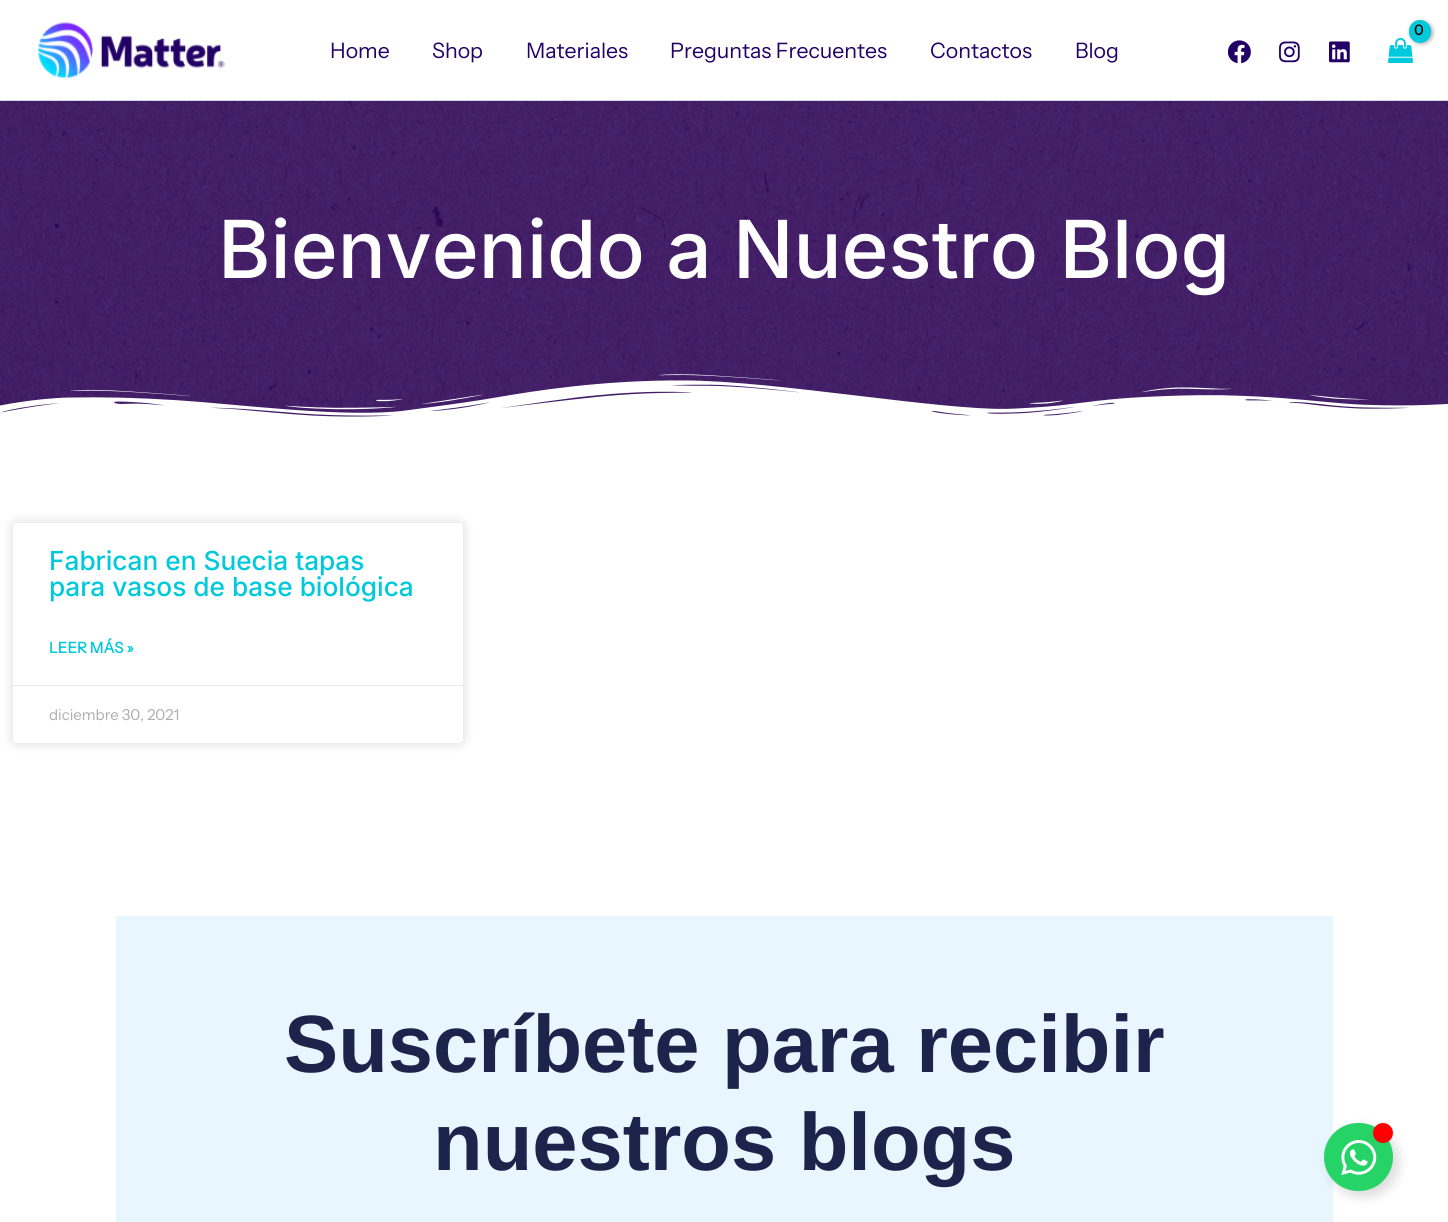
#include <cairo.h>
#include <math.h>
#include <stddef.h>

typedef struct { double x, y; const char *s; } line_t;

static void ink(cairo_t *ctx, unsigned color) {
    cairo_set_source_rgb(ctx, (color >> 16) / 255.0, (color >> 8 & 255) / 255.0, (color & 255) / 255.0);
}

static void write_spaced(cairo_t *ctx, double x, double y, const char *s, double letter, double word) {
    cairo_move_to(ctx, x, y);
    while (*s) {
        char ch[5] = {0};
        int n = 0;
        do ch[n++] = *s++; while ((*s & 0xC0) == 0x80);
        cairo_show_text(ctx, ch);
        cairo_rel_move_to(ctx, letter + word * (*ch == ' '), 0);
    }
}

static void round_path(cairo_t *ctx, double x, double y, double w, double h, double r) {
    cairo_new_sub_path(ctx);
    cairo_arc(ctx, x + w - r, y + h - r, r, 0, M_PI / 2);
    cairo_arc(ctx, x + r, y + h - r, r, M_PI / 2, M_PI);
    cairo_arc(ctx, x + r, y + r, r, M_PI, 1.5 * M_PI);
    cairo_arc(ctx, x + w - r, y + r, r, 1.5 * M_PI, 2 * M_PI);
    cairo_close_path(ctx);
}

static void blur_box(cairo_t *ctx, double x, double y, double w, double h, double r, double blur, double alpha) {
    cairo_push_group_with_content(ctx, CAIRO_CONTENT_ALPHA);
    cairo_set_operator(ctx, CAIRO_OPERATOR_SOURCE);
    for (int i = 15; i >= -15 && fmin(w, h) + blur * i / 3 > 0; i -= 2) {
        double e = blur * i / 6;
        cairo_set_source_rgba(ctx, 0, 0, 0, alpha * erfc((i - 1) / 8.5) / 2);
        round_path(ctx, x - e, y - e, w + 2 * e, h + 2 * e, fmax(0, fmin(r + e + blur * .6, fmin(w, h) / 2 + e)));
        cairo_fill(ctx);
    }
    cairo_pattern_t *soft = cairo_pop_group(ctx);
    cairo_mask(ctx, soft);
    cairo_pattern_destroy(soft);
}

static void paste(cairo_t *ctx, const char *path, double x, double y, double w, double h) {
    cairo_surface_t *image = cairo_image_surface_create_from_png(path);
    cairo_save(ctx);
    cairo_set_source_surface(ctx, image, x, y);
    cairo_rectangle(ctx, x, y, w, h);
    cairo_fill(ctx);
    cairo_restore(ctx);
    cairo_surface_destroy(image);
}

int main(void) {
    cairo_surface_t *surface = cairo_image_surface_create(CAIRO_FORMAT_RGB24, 1448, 1222);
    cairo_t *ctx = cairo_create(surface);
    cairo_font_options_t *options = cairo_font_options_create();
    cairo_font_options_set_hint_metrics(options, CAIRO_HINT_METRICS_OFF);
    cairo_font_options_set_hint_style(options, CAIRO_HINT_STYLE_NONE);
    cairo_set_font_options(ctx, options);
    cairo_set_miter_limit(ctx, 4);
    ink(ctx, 0xFFFFFF);
    cairo_paint(ctx);
    ink(ctx, 0xD1DAE5);
    cairo_rectangle(ctx, 0, 100, 1448, 1);
    cairo_fill(ctx);
    paste(ctx, "media/1.png", 38, 22, 187, 56);
    paste(ctx, "media/2.png", 1388, 38, 25, 25);
    ink(ctx, 0x000000);
    blur_box(ctx, 1410, 21, 23, 23, 11.5, 2, 0.3);
    ink(ctx, 0x00C9DC);
    round_path(ctx, 1409, 20, 22, 23, 11);
    cairo_fill(ctx);
    cairo_select_font_face(ctx, "Instrument Sans", CAIRO_FONT_SLANT_NORMAL, CAIRO_FONT_WEIGHT_BOLD);
    cairo_set_font_size(ctx, 14);
    ink(ctx, 0x000000);
    write_spaced(ctx, 1414, 35, "0", -1, 0);
    paste(ctx, "media/3.png", 1228, 40, 23, 24);
    paste(ctx, "media/4.png", 1279, 41, 21, 22);
    paste(ctx, "media/5.png", 1329, 41, 21, 22);
    cairo_select_font_face(ctx, "Instrument Sans", CAIRO_FONT_SLANT_NORMAL, CAIRO_FONT_WEIGHT_NORMAL);
    cairo_set_font_size(ctx, 21.25);
    ink(ctx, 0x230066);
    {
        static const line_t items[] = {
            {330, 58, "Home"},
            {432, 58, "Shop"},
            {526, 58, "Materiales"},
            {670, 58, "Preguntas Frecuentes"},
            {930, 58, "Contactos"},
            {1075, 58, "Blog"},
        };
        for (size_t i = 0; i < sizeof items / sizeof *items; i++) {
            cairo_move_to(ctx, items[i].x, items[i].y);
            cairo_show_text(ctx, items[i].s);
        }
    }
    paste(ctx, "media/6.png", 0, 101, 1448, 316);
    cairo_select_font_face(ctx, "Inter Medium", CAIRO_FONT_SLANT_NORMAL, CAIRO_FONT_WEIGHT_NORMAL);
    cairo_set_font_size(ctx, 80);
    ink(ctx, 0xFFFFFF);
    cairo_move_to(ctx, 218, 278);
    cairo_show_text(ctx, "Bienvenido a Nuestro Blog");
    paste(ctx, "media/7.png", 0, 374, 1448, 49);
    ink(ctx, 0x000000);
    blur_box(ctx, 13, 523, 450, 220, 4, 6, 0.15);
    ink(ctx, 0xFFFFFF);
    round_path(ctx, 13, 523, 450, 220, 4);
    cairo_fill(ctx);
    cairo_set_font_size(ctx, 26.25);
    ink(ctx, 0x00C9DC);
    cairo_move_to(ctx, 49, 570);
    cairo_show_text(ctx, "Fabrican en Suecia tapas");
    cairo_move_to(ctx, 49, 596);
    cairo_show_text(ctx, "para vasos de base biológica");
    cairo_select_font_face(ctx, "Instrument Sans", CAIRO_FONT_SLANT_NORMAL, CAIRO_FONT_WEIGHT_BOLD);
    cairo_set_font_size(ctx, 15);
    cairo_move_to(ctx, 49, 653);
    cairo_show_text(ctx, "LEER MÁS »");
    ink(ctx, 0xEAEAEA);
    cairo_rectangle(ctx, 13, 685, 450, 1);
    cairo_fill(ctx);
    cairo_select_font_face(ctx, "Instrument Sans", CAIRO_FONT_SLANT_NORMAL, CAIRO_FONT_WEIGHT_NORMAL);
    ink(ctx, 0xADADAD);
    cairo_move_to(ctx, 49, 720);
    cairo_show_text(ctx, "diciembre 30, 2021");
    ink(ctx, 0xE7F6FF);
    cairo_rectangle(ctx, 116, 916, 1217, 306);
    cairo_fill(ctx);
    cairo_select_font_face(ctx, "Liberation Sans", CAIRO_FONT_SLANT_NORMAL, CAIRO_FONT_WEIGHT_BOLD);
    cairo_set_font_size(ctx, 81.25);
    ink(ctx, 0x1C244B);
    cairo_move_to(ctx, 284, 1072);
    cairo_show_text(ctx, "Suscríbete para recibir");
    cairo_move_to(ctx, 433, 1170);
    cairo_show_text(ctx, "nuestros blogs");
    ink(ctx, 0x000000);
    blur_box(ctx, 1329, 1128, 69, 68, 34, 6, 0.15);
    ink(ctx, 0x25D366);
    round_path(ctx, 1324, 1123, 69, 68, 34);
    cairo_fill(ctx);
    paste(ctx, "media/8.png", 1341, 1140, 36, 35);
    ink(ctx, 0xFF0000);
    cairo_arc(ctx, 1383, 1133, 10, 0, 2 * M_PI);
    cairo_fill(ctx);
    cairo_surface_write_to_png(surface, "image.png");
    cairo_font_options_destroy(options);
    cairo_destroy(ctx);
    cairo_surface_destroy(surface);
    return 0;
}
